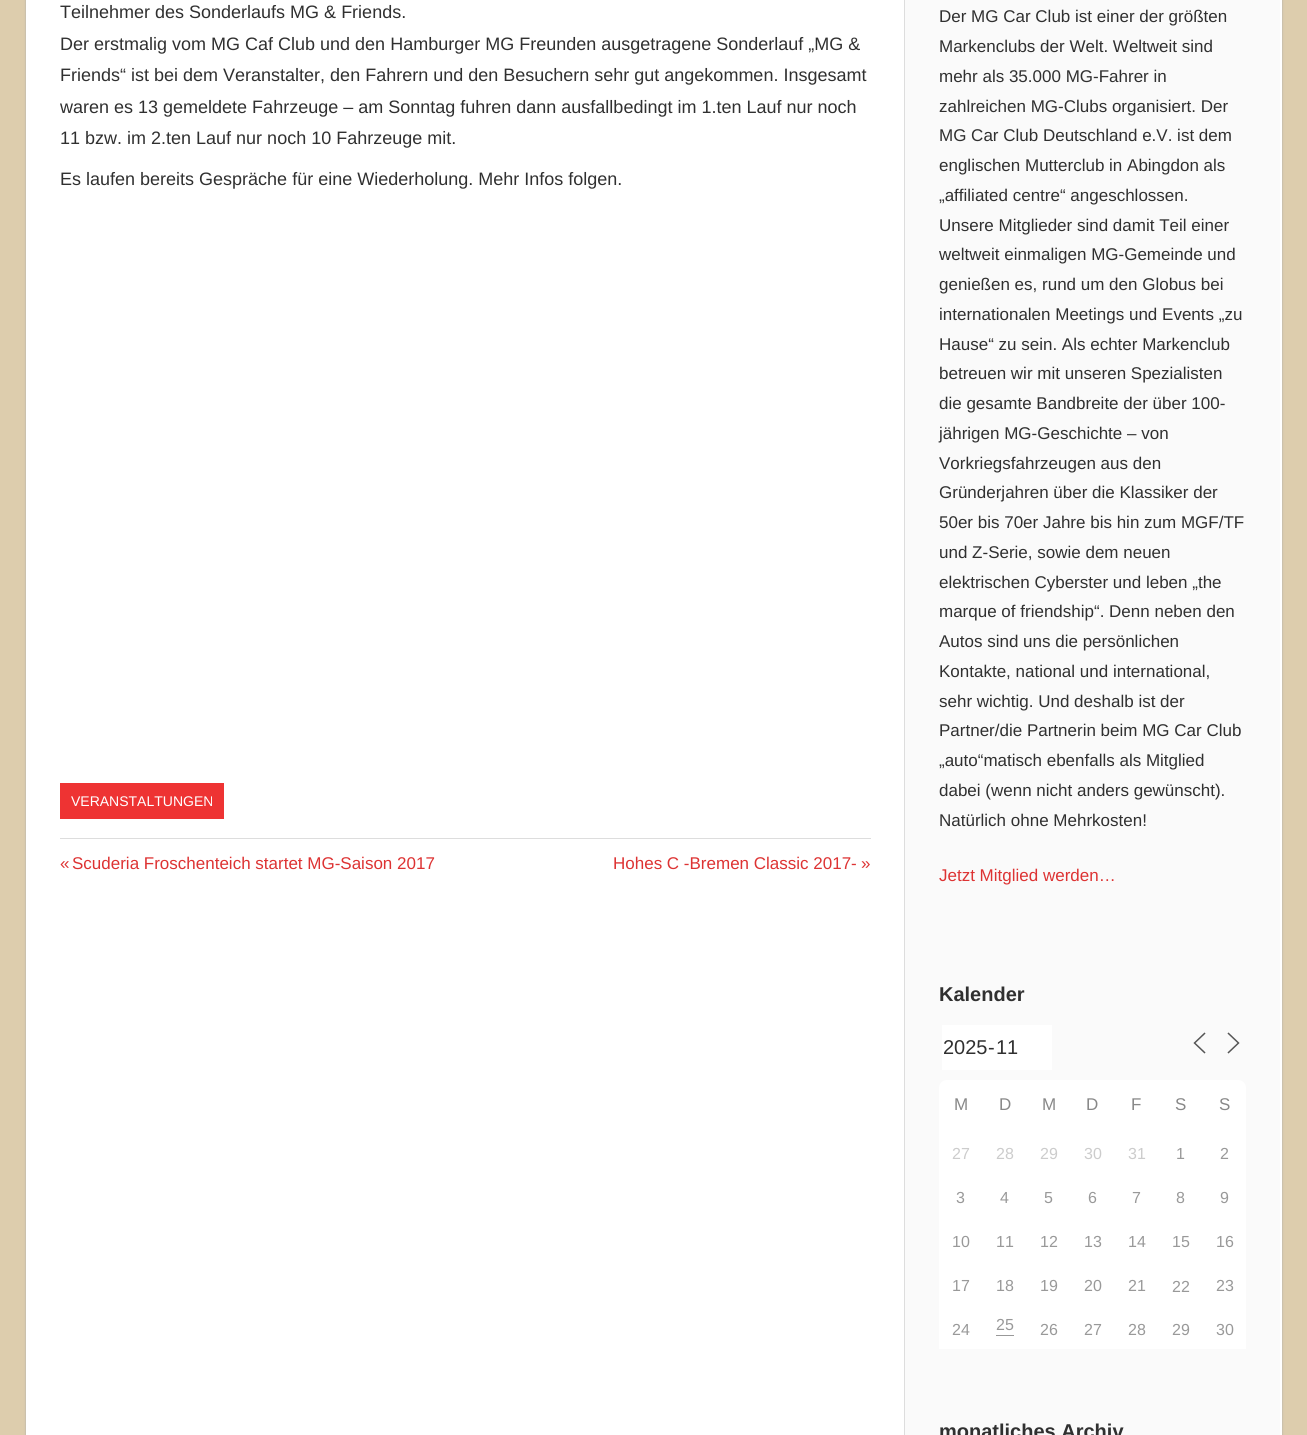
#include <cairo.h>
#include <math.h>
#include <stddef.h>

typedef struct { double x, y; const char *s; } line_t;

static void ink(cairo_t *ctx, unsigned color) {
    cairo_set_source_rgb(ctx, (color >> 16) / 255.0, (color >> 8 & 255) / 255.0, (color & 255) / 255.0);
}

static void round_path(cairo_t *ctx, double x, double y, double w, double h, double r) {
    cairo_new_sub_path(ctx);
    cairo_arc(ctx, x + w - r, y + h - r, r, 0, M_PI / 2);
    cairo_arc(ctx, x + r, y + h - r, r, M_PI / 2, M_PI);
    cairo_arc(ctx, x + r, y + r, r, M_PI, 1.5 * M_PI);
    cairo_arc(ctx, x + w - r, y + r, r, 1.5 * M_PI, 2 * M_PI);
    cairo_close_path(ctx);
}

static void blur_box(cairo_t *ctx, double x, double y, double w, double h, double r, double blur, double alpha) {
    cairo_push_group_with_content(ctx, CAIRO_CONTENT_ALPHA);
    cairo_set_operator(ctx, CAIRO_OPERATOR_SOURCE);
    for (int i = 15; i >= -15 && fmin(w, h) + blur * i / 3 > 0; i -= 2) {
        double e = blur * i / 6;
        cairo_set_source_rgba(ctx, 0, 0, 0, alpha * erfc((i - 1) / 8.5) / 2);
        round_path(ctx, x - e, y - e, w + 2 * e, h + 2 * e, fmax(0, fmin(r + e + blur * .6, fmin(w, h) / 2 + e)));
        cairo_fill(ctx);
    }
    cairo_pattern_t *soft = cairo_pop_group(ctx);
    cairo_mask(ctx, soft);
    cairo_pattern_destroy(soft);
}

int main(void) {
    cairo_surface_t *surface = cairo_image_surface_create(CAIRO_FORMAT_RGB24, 1307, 1435);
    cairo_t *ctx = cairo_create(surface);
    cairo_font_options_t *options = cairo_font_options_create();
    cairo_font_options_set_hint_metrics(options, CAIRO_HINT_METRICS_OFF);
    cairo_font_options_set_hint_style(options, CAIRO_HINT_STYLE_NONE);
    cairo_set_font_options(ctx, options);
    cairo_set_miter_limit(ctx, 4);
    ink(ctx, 0xDDCDAD);
    cairo_paint(ctx);
    ink(ctx, 0xAAAAAA);
    blur_box(ctx, 26, -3, 1256, 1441, 0, 1, 1);
    ink(ctx, 0xFFFFFF);
    cairo_rectangle(ctx, 26, 0, 1256, 1435);
    cairo_fill(ctx);
    cairo_select_font_face(ctx, "Liberation Sans", CAIRO_FONT_SLANT_NORMAL, CAIRO_FONT_WEIGHT_NORMAL);
    cairo_set_font_size(ctx, 18);
    ink(ctx, 0x303030);
    {
        static const line_t items[] = {
            {60, 18, "Teilnehmer des Sonderlaufs MG & Friends."},
            {60, 50, "Der erstmalig vom MG Caf Club und den Hamburger MG Freunden ausgetragene Sonderlauf „MG &"},
            {60, 81, "Friends“ ist bei dem Veranstalter, den Fahrern und den Besuchern sehr gut angekommen. Insgesamt"},
            {60, 113, "waren es 13 gemeldete Fahrzeuge – am Sonntag fuhren dann ausfallbedingt im 1.ten Lauf nur noch"},
            {60, 144, "11 bzw. im 2.ten Lauf nur noch 10 Fahrzeuge mit."},
            {60, 185, "Es laufen bereits Gespräche für eine Wiederholung. Mehr Infos folgen."},
        };
        for (size_t i = 0; i < sizeof items / sizeof *items; i++) {
            cairo_move_to(ctx, items[i].x, items[i].y);
            cairo_show_text(ctx, items[i].s);
        }
    }
    ink(ctx, 0xEE3333);
    cairo_rectangle(ctx, 60, 783, 164, 36);
    cairo_fill(ctx);
    cairo_set_font_size(ctx, 14);
    ink(ctx, 0xFFFFFF);
    cairo_move_to(ctx, 71, 806);
    cairo_show_text(ctx, "VERANSTALTUNGEN");
    ink(ctx, 0xDDDDDD);
    cairo_rectangle(ctx, 60, 838, 811, 1);
    cairo_fill(ctx);
    cairo_set_font_size(ctx, 17);
    ink(ctx, 0xDD3333);
    {
        static const line_t items[] = {
            {60, 869, "«"},
            {72, 869, "Scuderia Froschenteich startet MG-Saison 2017"},
            {613, 869, "Hohes C -Bremen Classic 2017-"},
            {861, 869, "»"},
        };
        for (size_t i = 0; i < sizeof items / sizeof *items; i++) {
            cairo_move_to(ctx, items[i].x, items[i].y);
            cairo_show_text(ctx, items[i].s);
        }
    }
    ink(ctx, 0xFAFAFA);
    cairo_rectangle(ctx, 905, 0, 375, 1435);
    cairo_fill(ctx);
    ink(ctx, 0xDDDDDD);
    cairo_rectangle(ctx, 904, 0, 1, 1435);
    cairo_fill(ctx);
    ink(ctx, 0x303030);
    {
        static const line_t items[] = {
            {939, 22, "Der MG Car Club ist einer der größten"},
            {939, 52, "Markenclubs der Welt. Weltweit sind"},
            {939, 82, "mehr als 35.000 MG-Fahrer in"},
            {939, 112, "zahlreichen MG-Clubs organisiert. Der"},
            {939, 141, "MG Car Club Deutschland e.V. ist dem"},
            {939, 171, "englischen Mutterclub in Abingdon als"},
            {939, 201, "„affiliated centre“ angeschlossen."},
            {939, 231, "Unsere Mitglieder sind damit Teil einer"},
            {939, 260, "weltweit einmaligen MG-Gemeinde und"},
            {939, 290, "genießen es, rund um den Globus bei"},
            {939, 320, "internationalen Meetings und Events „zu"},
            {939, 350, "Hause“ zu sein. Als echter Markenclub"},
            {939, 379, "betreuen wir mit unseren Spezialisten"},
            {939, 409, "die gesamte Bandbreite der über 100-"},
            {939, 439, "jährigen MG-Geschichte – von"},
            {939, 469, "Vorkriegsfahrzeugen aus den"},
            {939, 498, "Gründerjahren über die Klassiker der"},
            {939, 528, "50er bis 70er Jahre bis hin zum MGF/TF"},
            {939, 558, "und Z-Serie, sowie dem neuen"},
            {939, 588, "elektrischen Cyberster und leben „the"},
            {939, 617, "marque of friendship“. Denn neben den"},
            {939, 647, "Autos sind uns die persönlichen"},
            {939, 677, "Kontakte, national und international,"},
            {939, 707, "sehr wichtig. Und deshalb ist der"},
            {939, 736, "Partner/die Partnerin beim MG Car Club"},
            {939, 766, "„auto“matisch ebenfalls als Mitglied"},
            {939, 796, "dabei (wenn nicht anders gewünscht)."},
            {939, 826, "Natürlich ohne Mehrkosten!"},
        };
        for (size_t i = 0; i < sizeof items / sizeof *items; i++) {
            cairo_move_to(ctx, items[i].x, items[i].y);
            cairo_show_text(ctx, items[i].s);
        }
    }
    ink(ctx, 0xDD3333);
    cairo_move_to(ctx, 939, 881);
    cairo_show_text(ctx, "Jetzt Mitglied werden…");
    cairo_select_font_face(ctx, "Liberation Sans", CAIRO_FONT_SLANT_NORMAL, CAIRO_FONT_WEIGHT_BOLD);
    cairo_set_font_size(ctx, 20);
    ink(ctx, 0x303030);
    cairo_move_to(ctx, 939, 1001);
    cairo_show_text(ctx, "Kalender");
    ink(ctx, 0xFFFFFF);
    cairo_rectangle(ctx, 942, 1025, 110, 45);
    cairo_fill(ctx);
    cairo_select_font_face(ctx, "Liberation Sans", CAIRO_FONT_SLANT_NORMAL, CAIRO_FONT_WEIGHT_NORMAL);
    ink(ctx, 0x303030);
    {
        static const line_t items[] = {
            {943, 1054, "2025"},
            {988, 1054, "-"},
            {996, 1054, "11"},
        };
        for (size_t i = 0; i < sizeof items / sizeof *items; i++) {
            cairo_move_to(ctx, items[i].x, items[i].y);
            cairo_show_text(ctx, items[i].s);
        }
    }
    cairo_new_path(ctx);
    cairo_move_to(ctx, 1204.5, 1052.5);
    cairo_line_to(ctx, 1194.5, 1043);
    cairo_line_to(ctx, 1204.5, 1033.5);
    cairo_move_to(ctx, 1228.5, 1052.5);
    cairo_line_to(ctx, 1238.5, 1043);
    cairo_line_to(ctx, 1228.5, 1033.5);
    ink(ctx, 0x555555);
    cairo_set_line_width(ctx, 1.5);
    cairo_set_line_cap(ctx, CAIRO_LINE_CAP_SQUARE);
    cairo_stroke(ctx);
    ink(ctx, 0xFFFFFF);
    cairo_new_path(ctx);
    cairo_move_to(ctx, 947, 1080);
    cairo_line_to(ctx, 1238, 1080);
    cairo_curve_to(ctx, 1242.5, 1080, 1246, 1083.5, 1246, 1088);
    cairo_line_to(ctx, 1246, 1130);
    cairo_line_to(ctx, 939, 1130);
    cairo_line_to(ctx, 939, 1088);
    cairo_curve_to(ctx, 939, 1083.5, 942.5, 1080, 947, 1080);
    cairo_close_path(ctx);
    cairo_fill(ctx);
    cairo_set_font_size(ctx, 17);
    ink(ctx, 0x888888);
    {
        static const line_t items[] = {
            {954, 1110, "M"},
            {999, 1110, "D"},
            {1042, 1110, "M"},
            {1086, 1110, "D"},
            {1131, 1110, "F"},
            {1175, 1110, "S"},
            {1219, 1110, "S"},
        };
        for (size_t i = 0; i < sizeof items / sizeof *items; i++) {
            cairo_move_to(ctx, items[i].x, items[i].y);
            cairo_show_text(ctx, items[i].s);
        }
    }
    ink(ctx, 0xFFFFFF);
    cairo_rectangle(ctx, 939, 1130, 307, 219);
    cairo_fill(ctx);
    cairo_set_font_size(ctx, 16);
    ink(ctx, 0xCCCCCC);
    {
        static const line_t items[] = {
            {952, 1159, "27"},
            {996, 1159, "28"},
            {1040, 1159, "29"},
            {1084, 1159, "30"},
            {1128, 1159, "31"},
        };
        for (size_t i = 0; i < sizeof items / sizeof *items; i++) {
            cairo_move_to(ctx, items[i].x, items[i].y);
            cairo_show_text(ctx, items[i].s);
        }
    }
    ink(ctx, 0x999999);
    {
        static const line_t items[] = {
            {1176, 1159, "1"},
            {1220, 1159, "2"},
            {956, 1203, "3"},
            {1000, 1203, "4"},
            {1044, 1203, "5"},
            {1088, 1203, "6"},
            {1132, 1203, "7"},
            {1176, 1203, "8"},
            {1220, 1203, "9"},
            {952, 1247, "10"},
            {996, 1247, "11"},
            {1040, 1247, "12"},
            {1084, 1247, "13"},
            {1128, 1247, "14"},
            {1172, 1247, "15"},
            {1216, 1247, "16"},
            {952, 1291, "17"},
            {996, 1291, "18"},
            {1040, 1291, "19"},
            {1084, 1291, "20"},
            {1128, 1291, "21"},
            {1172, 1292, "22"},
            {1216, 1291, "23"},
            {952, 1335, "24"},
            {996, 1330, "25"},
        };
        for (size_t i = 0; i < sizeof items / sizeof *items; i++) {
            cairo_move_to(ctx, items[i].x, items[i].y);
            cairo_show_text(ctx, items[i].s);
        }
    }
    cairo_rectangle(ctx, 996, 1335, 18, 1);
    cairo_fill(ctx);
    {
        static const line_t items[] = {
            {1040, 1335, "26"},
            {1084, 1335, "27"},
            {1128, 1335, "28"},
            {1172, 1335, "29"},
            {1216, 1335, "30"},
        };
        for (size_t i = 0; i < sizeof items / sizeof *items; i++) {
            cairo_move_to(ctx, items[i].x, items[i].y);
            cairo_show_text(ctx, items[i].s);
        }
    }
    cairo_select_font_face(ctx, "Liberation Sans", CAIRO_FONT_SLANT_NORMAL, CAIRO_FONT_WEIGHT_BOLD);
    cairo_set_font_size(ctx, 20);
    ink(ctx, 0x303030);
    cairo_move_to(ctx, 939, 1438);
    cairo_show_text(ctx, "monatliches Archiv");
    cairo_surface_write_to_png(surface, "image.png");
    cairo_font_options_destroy(options);
    cairo_destroy(ctx);
    cairo_surface_destroy(surface);
    return 0;
}
